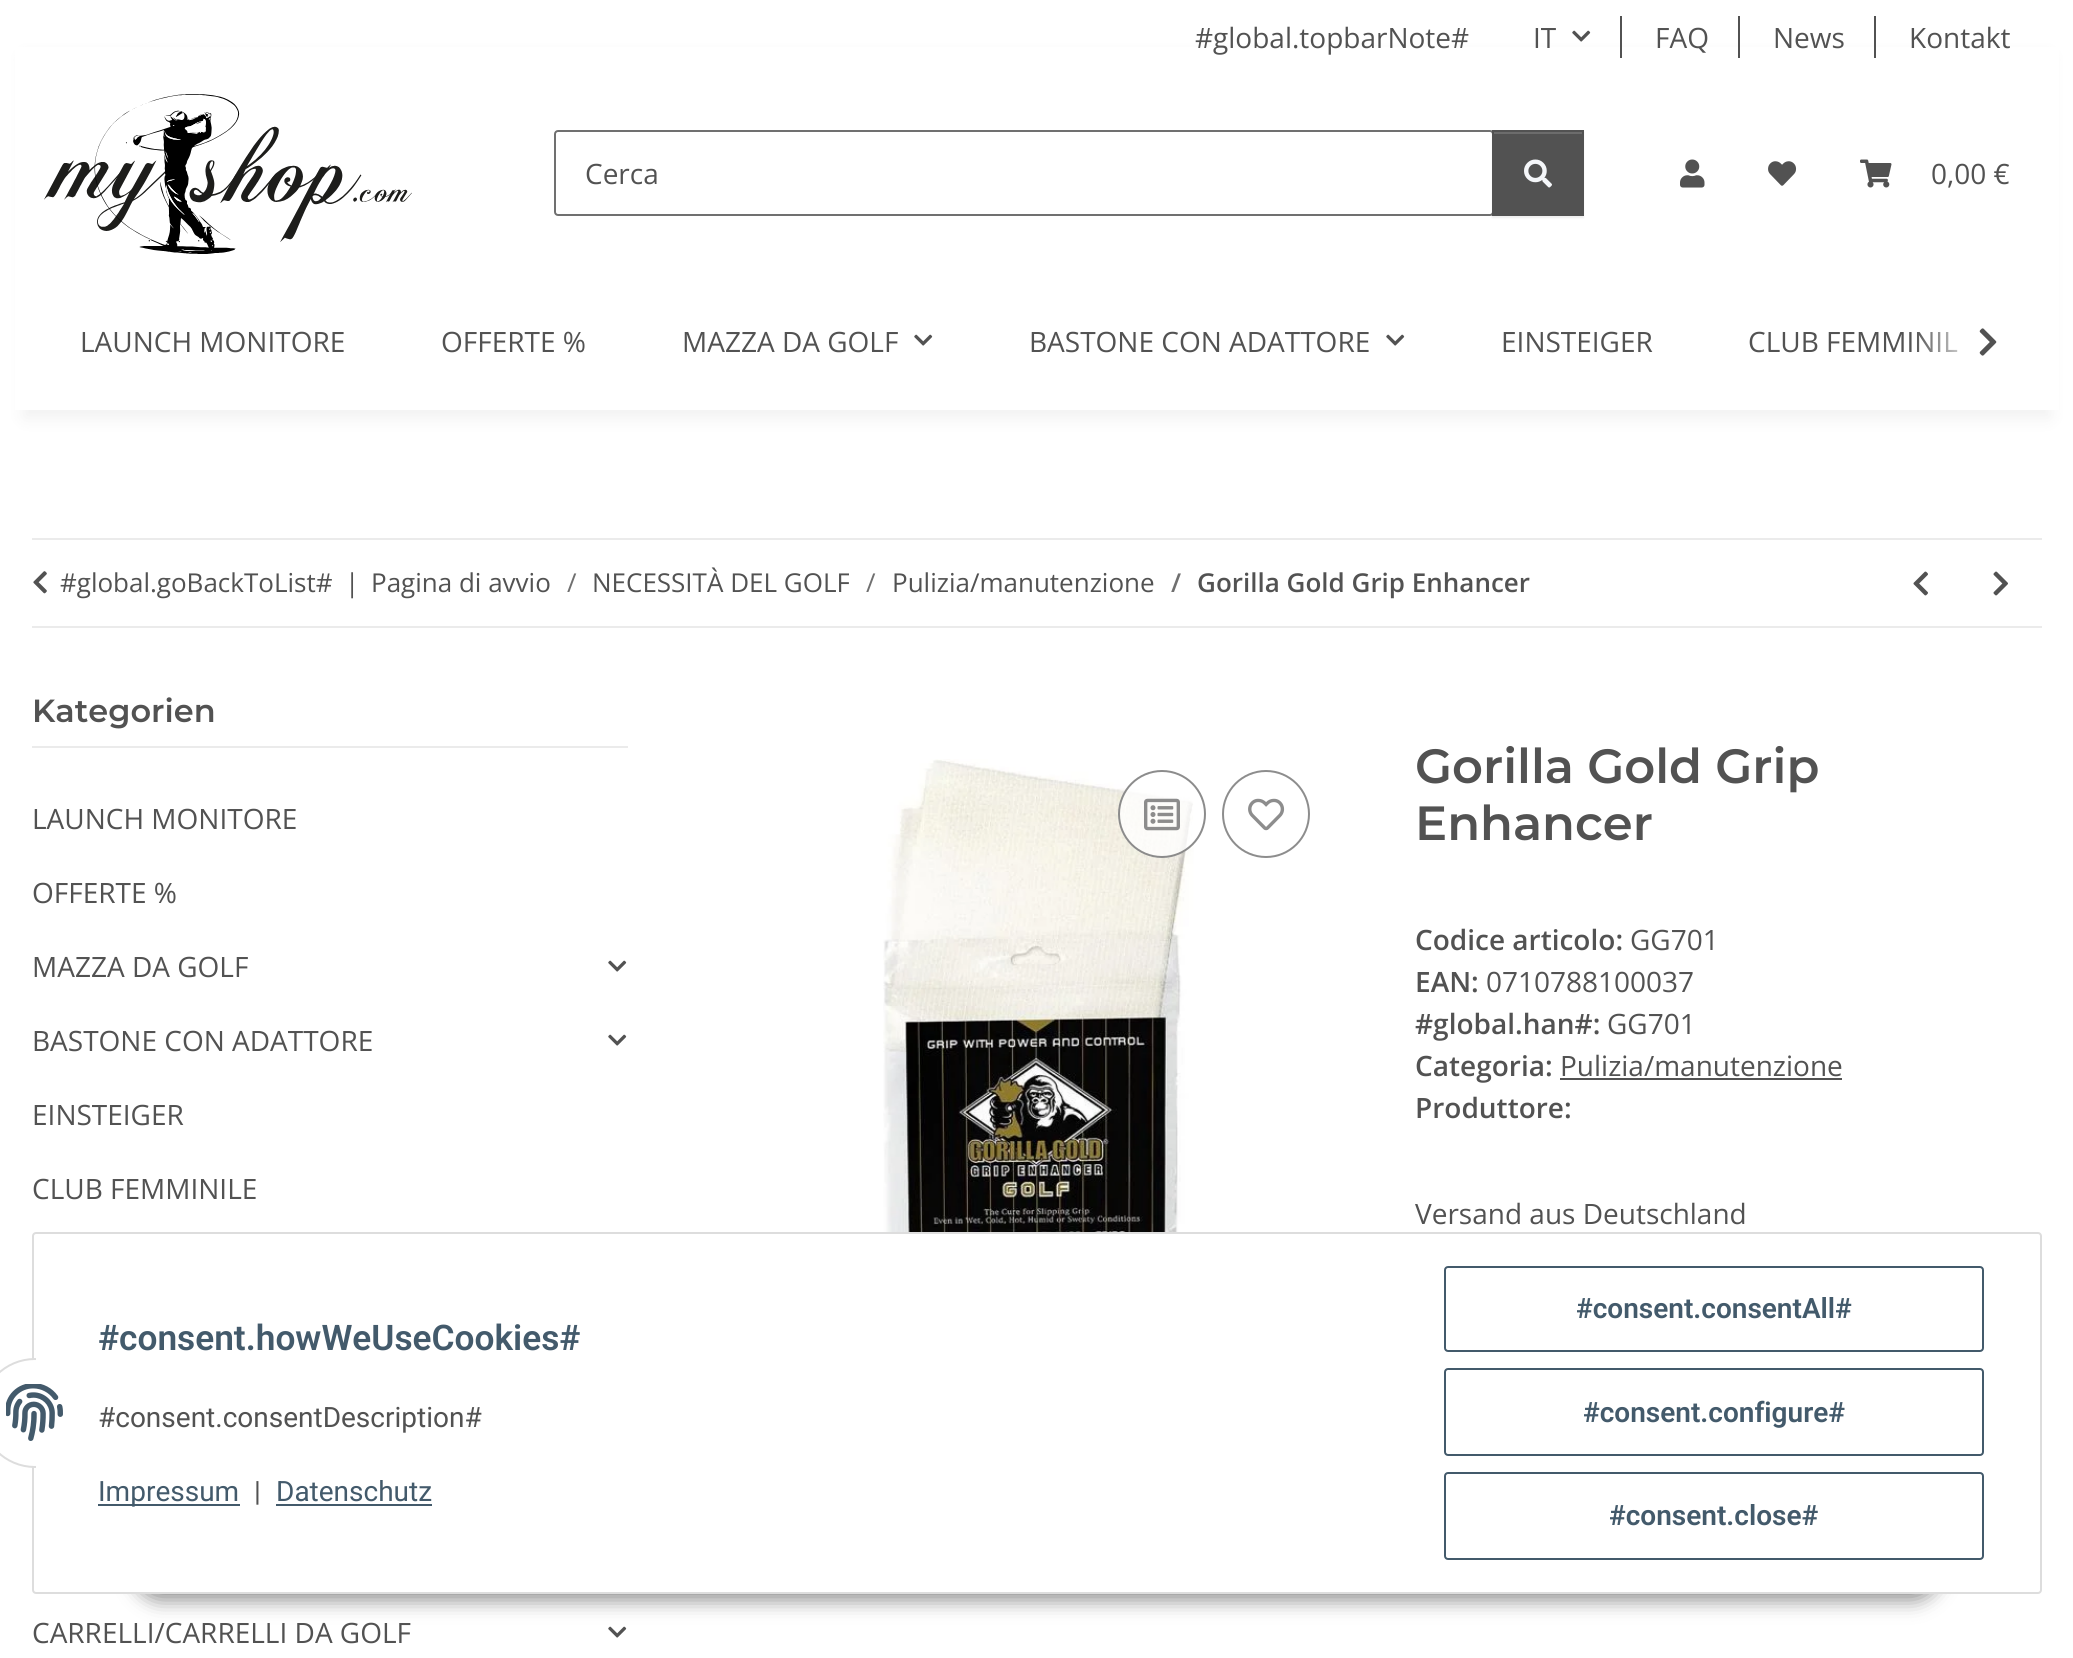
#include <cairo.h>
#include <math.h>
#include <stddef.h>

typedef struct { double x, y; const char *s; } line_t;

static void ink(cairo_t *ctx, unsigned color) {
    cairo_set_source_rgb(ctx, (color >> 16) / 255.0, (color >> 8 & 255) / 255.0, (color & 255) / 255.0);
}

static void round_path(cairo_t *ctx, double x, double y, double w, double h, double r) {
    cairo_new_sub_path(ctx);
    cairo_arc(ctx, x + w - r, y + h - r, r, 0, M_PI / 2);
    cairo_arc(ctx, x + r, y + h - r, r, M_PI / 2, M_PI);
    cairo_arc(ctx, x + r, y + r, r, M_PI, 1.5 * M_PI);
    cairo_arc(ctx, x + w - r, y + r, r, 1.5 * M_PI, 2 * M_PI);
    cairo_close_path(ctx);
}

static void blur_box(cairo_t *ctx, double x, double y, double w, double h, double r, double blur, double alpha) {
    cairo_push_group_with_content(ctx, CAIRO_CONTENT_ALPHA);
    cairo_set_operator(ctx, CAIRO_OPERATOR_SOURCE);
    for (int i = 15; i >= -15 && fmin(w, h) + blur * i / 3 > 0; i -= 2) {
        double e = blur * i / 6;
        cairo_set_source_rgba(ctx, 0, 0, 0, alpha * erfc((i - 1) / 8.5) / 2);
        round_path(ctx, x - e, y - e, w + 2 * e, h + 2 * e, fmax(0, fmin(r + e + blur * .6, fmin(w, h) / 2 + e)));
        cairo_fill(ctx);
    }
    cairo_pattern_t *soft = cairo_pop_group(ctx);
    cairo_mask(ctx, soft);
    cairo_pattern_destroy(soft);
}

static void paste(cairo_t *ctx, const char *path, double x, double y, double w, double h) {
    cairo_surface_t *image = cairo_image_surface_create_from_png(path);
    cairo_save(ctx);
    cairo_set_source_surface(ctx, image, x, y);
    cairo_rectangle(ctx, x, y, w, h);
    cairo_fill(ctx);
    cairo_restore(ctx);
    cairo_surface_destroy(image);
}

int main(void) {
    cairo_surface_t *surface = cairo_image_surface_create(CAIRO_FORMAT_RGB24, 2073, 1658);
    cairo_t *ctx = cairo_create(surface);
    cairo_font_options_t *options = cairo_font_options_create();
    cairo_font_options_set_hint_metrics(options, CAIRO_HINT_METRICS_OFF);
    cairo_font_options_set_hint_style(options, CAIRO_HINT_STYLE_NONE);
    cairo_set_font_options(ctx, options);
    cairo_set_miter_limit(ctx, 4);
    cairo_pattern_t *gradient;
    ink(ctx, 0xFFFFFF);
    cairo_paint(ctx);
    ink(ctx, 0x000000);
    blur_box(ctx, 24, 56, 2026, 362, 0, 9, 0.06);
    ink(ctx, 0xFFFFFF);
    cairo_rectangle(ctx, 15, 47, 2044, 363);
    cairo_fill(ctx);
    cairo_select_font_face(ctx, "Open Sans", CAIRO_FONT_SLANT_NORMAL, CAIRO_FONT_WEIGHT_NORMAL);
    cairo_set_font_size(ctx, 28);
    ink(ctx, 0x525252);
    cairo_move_to(ctx, 1195, 48);
    cairo_show_text(ctx, "#global.topbarNote#");
    cairo_move_to(ctx, 1533, 48);
    cairo_show_text(ctx, "IT");
    paste(ctx, "media/1.png", 1572, 30, 19, 12);
    cairo_rectangle(ctx, 1620, 16, 2, 42);
    cairo_fill(ctx);
    cairo_move_to(ctx, 1655, 48);
    cairo_show_text(ctx, "FAQ");
    cairo_rectangle(ctx, 1738, 16, 2, 42);
    cairo_fill(ctx);
    cairo_move_to(ctx, 1773, 48);
    cairo_show_text(ctx, "News");
    cairo_rectangle(ctx, 1874, 16, 2, 42);
    cairo_fill(ctx);
    cairo_move_to(ctx, 1909, 48);
    cairo_show_text(ctx, "Kontakt");
    paste(ctx, "media/2.png", 44, 94, 368, 160);
    round_path(ctx, 555, 131, 938, 84, 3);
    ink(ctx, 0x707070);
    cairo_stroke(ctx);
    ink(ctx, 0x525252);
    cairo_move_to(ctx, 585, 184);
    cairo_show_text(ctx, "Cerca");
    ink(ctx, 0x000000);
    blur_box(ctx, 1492, 132, 92, 86, 0, 1, 0.07);
    ink(ctx, 0x525252);
    cairo_rectangle(ctx, 1492, 130, 92, 86);
    cairo_fill(ctx);
    ink(ctx, 0x6C6C6C);
    cairo_rectangle(ctx, 1494, 132, 88, 2);
    cairo_fill(ctx);
    paste(ctx, "media/3.png", 1524, 159, 28, 29);
    paste(ctx, "media/4.png", 1680, 159, 25, 29);
    paste(ctx, "media/5.png", 1768, 161, 29, 25);
    paste(ctx, "media/6.png", 1860, 159, 32, 29);
    ink(ctx, 0x525252);
    cairo_move_to(ctx, 1931, 184);
    cairo_show_text(ctx, "0,00 €");
    cairo_move_to(ctx, 1748, 352);
    cairo_show_text(ctx, "CLUB FEMMINIL");
    gradient = cairo_pattern_create_linear(1914, 342, 2010, 342);
    cairo_pattern_add_color_stop_rgba(gradient, 0, 1, 1, 1, 0.01);
    cairo_pattern_add_color_stop_rgba(gradient, 0.7, 1, 1, 1, 1);
    cairo_set_source(ctx, gradient);
    cairo_pattern_destroy(gradient);
    cairo_rectangle(ctx, 1917, 332, 41, 20);
    cairo_fill(ctx);
    paste(ctx, "media/7.png", 1979, 328, 18, 28);
    ink(ctx, 0x525252);
    {
        static const line_t items[] = {
            {80, 352, "LAUNCH MONITORE"},
            {441, 352, "OFFERTE %"},
            {682, 352, "MAZZA DA GOLF"},
        };
        for (size_t i = 0; i < sizeof items / sizeof *items; i++) {
            cairo_move_to(ctx, items[i].x, items[i].y);
            cairo_show_text(ctx, items[i].s);
        }
    }
    paste(ctx, "media/1.png", 914, 334, 19, 12);
    cairo_move_to(ctx, 1029, 352);
    cairo_show_text(ctx, "BASTONE CON ADATTORE");
    paste(ctx, "media/1.png", 1386, 334, 19, 12);
    cairo_move_to(ctx, 1501, 352);
    cairo_show_text(ctx, "EINSTEIGER");
    ink(ctx, 0xEBEBEB);
    cairo_rectangle(ctx, 32, 538, 2010, 2);
    cairo_fill(ctx);
    cairo_rectangle(ctx, 32, 626, 2010, 2);
    cairo_fill(ctx);
    paste(ctx, "media/8.png", 33, 571, 14, 23);
    cairo_set_font_size(ctx, 26);
    ink(ctx, 0x525252);
    {
        static const line_t items[] = {
            {60, 592, "#global.goBackToList#"},
            {345, 592, "|"},
            {371, 592, "Pagina di avvio"},
        };
        for (size_t i = 0; i < sizeof items / sizeof *items; i++) {
            cairo_move_to(ctx, items[i].x, items[i].y);
            cairo_show_text(ctx, items[i].s);
        }
    }
    ink(ctx, 0x707070);
    cairo_move_to(ctx, 567, 592);
    cairo_show_text(ctx, "/");
    ink(ctx, 0x525252);
    cairo_move_to(ctx, 592, 592);
    cairo_show_text(ctx, "NECESSITÀ DEL GOLF");
    ink(ctx, 0x707070);
    cairo_move_to(ctx, 866, 592);
    cairo_show_text(ctx, "/");
    ink(ctx, 0x525252);
    cairo_move_to(ctx, 892, 592);
    cairo_show_text(ctx, "Pulizia/manutenzione");
    cairo_select_font_face(ctx, "Open Sans SemiBold", CAIRO_FONT_SLANT_NORMAL, CAIRO_FONT_WEIGHT_NORMAL);
    ink(ctx, 0x707070);
    cairo_move_to(ctx, 1171, 592);
    cairo_show_text(ctx, "/");
    ink(ctx, 0x525252);
    cairo_move_to(ctx, 1197, 592);
    cairo_show_text(ctx, "Gorilla Gold Grip Enhancer");
    paste(ctx, "media/9.png", 1913, 571, 15, 25);
    paste(ctx, "media/10.png", 1993, 571, 15, 25);
    ink(ctx, 0xEBEBEB);
    cairo_rectangle(ctx, 32, 746, 596, 2);
    cairo_fill(ctx);
    cairo_select_font_face(ctx, "Montserrat SemiBold", CAIRO_FONT_SLANT_NORMAL, CAIRO_FONT_WEIGHT_NORMAL);
    cairo_set_font_size(ctx, 32);
    ink(ctx, 0x525252);
    cairo_move_to(ctx, 32, 722);
    cairo_show_text(ctx, "Kategorien");
    cairo_select_font_face(ctx, "Open Sans", CAIRO_FONT_SLANT_NORMAL, CAIRO_FONT_WEIGHT_NORMAL);
    cairo_set_font_size(ctx, 28);
    {
        static const line_t items[] = {
            {32, 829, "LAUNCH MONITORE"},
            {32, 903, "OFFERTE %"},
            {32, 977, "MAZZA DA GOLF"},
        };
        for (size_t i = 0; i < sizeof items / sizeof *items; i++) {
            cairo_move_to(ctx, items[i].x, items[i].y);
            cairo_show_text(ctx, items[i].s);
        }
    }
    paste(ctx, "media/1.png", 608, 960, 19, 12);
    cairo_move_to(ctx, 32, 1051);
    cairo_show_text(ctx, "BASTONE CON ADATTORE");
    paste(ctx, "media/1.png", 608, 1034, 19, 12);
    {
        static const line_t items[] = {
            {32, 1125, "EINSTEIGER"},
            {32, 1199, "CLUB FEMMINILE"},
            {32, 1643, "CARRELLI/CARRELLI DA GOLF"},
        };
        for (size_t i = 0; i < sizeof items / sizeof *items; i++) {
            cairo_move_to(ctx, items[i].x, items[i].y);
            cairo_show_text(ctx, items[i].s);
        }
    }
    paste(ctx, "media/1.png", 608, 1626, 19, 12);
    paste(ctx, "media/11.png", 883, 759, 311, 473);
    cairo_set_source_rgba(ctx, 1, 1, 1, 0.8);
    cairo_arc(ctx, 1162, 814, 44, 0, 2 * M_PI);
    cairo_fill(ctx);
    cairo_arc(ctx, 1162, 814, 43, 0, 2 * M_PI);
    cairo_set_source_rgba(ctx, 0.439, 0.439, 0.439, 0.8);
    cairo_stroke(ctx);
    paste(ctx, "media/12.png", 1144, 798, 36, 33);
    cairo_arc(ctx, 1266, 814, 43, 0, 2 * M_PI);
    ink(ctx, 0x8D8D8D);
    cairo_stroke(ctx);
    paste(ctx, "media/13.png", 1248, 798, 37, 33);
    cairo_select_font_face(ctx, "Montserrat SemiBold", CAIRO_FONT_SLANT_NORMAL, CAIRO_FONT_WEIGHT_NORMAL);
    cairo_set_font_size(ctx, 48);
    ink(ctx, 0x525252);
    cairo_move_to(ctx, 1415, 783);
    cairo_show_text(ctx, "Gorilla Gold Grip");
    cairo_move_to(ctx, 1415, 840);
    cairo_show_text(ctx, "Enhancer");
    cairo_select_font_face(ctx, "Open Sans SemiBold", CAIRO_FONT_SLANT_NORMAL, CAIRO_FONT_WEIGHT_NORMAL);
    cairo_set_font_size(ctx, 28);
    cairo_move_to(ctx, 1415, 950);
    cairo_show_text(ctx, "Codice articolo:");
    cairo_select_font_face(ctx, "Open Sans", CAIRO_FONT_SLANT_NORMAL, CAIRO_FONT_WEIGHT_NORMAL);
    cairo_move_to(ctx, 1630, 950);
    cairo_show_text(ctx, "GG701");
    cairo_select_font_face(ctx, "Open Sans SemiBold", CAIRO_FONT_SLANT_NORMAL, CAIRO_FONT_WEIGHT_NORMAL);
    cairo_move_to(ctx, 1415, 992);
    cairo_show_text(ctx, "EAN:");
    cairo_select_font_face(ctx, "Open Sans", CAIRO_FONT_SLANT_NORMAL, CAIRO_FONT_WEIGHT_NORMAL);
    cairo_move_to(ctx, 1486, 992);
    cairo_show_text(ctx, "0710788100037");
    cairo_select_font_face(ctx, "Open Sans SemiBold", CAIRO_FONT_SLANT_NORMAL, CAIRO_FONT_WEIGHT_NORMAL);
    cairo_move_to(ctx, 1415, 1034);
    cairo_show_text(ctx, "#global.han#:");
    cairo_select_font_face(ctx, "Open Sans", CAIRO_FONT_SLANT_NORMAL, CAIRO_FONT_WEIGHT_NORMAL);
    cairo_move_to(ctx, 1607, 1034);
    cairo_show_text(ctx, "GG701");
    cairo_select_font_face(ctx, "Open Sans SemiBold", CAIRO_FONT_SLANT_NORMAL, CAIRO_FONT_WEIGHT_NORMAL);
    cairo_move_to(ctx, 1415, 1076);
    cairo_show_text(ctx, "Categoria:");
    cairo_select_font_face(ctx, "Open Sans", CAIRO_FONT_SLANT_NORMAL, CAIRO_FONT_WEIGHT_NORMAL);
    cairo_move_to(ctx, 1560, 1076);
    cairo_show_text(ctx, "Pulizia/manutenzione");
    cairo_rectangle(ctx, 1560, 1078, 282, 2);
    cairo_fill(ctx);
    cairo_select_font_face(ctx, "Open Sans SemiBold", CAIRO_FONT_SLANT_NORMAL, CAIRO_FONT_WEIGHT_NORMAL);
    cairo_move_to(ctx, 1415, 1118);
    cairo_show_text(ctx, "Produttore:");
    cairo_select_font_face(ctx, "Open Sans", CAIRO_FONT_SLANT_NORMAL, CAIRO_FONT_WEIGHT_NORMAL);
    cairo_move_to(ctx, 1415, 1224);
    cairo_show_text(ctx, "Versand aus Deutschland");
    ink(ctx, 0x000000);
    blur_box(ctx, 134, 1536, 1806, 64, 32, 10, 0.45);
    ink(ctx, 0xFFFFFF);
    round_path(ctx, 33, 1233, 2008, 360, 3);
    cairo_fill_preserve(ctx);
    ink(ctx, 0xDDDDDD);
    cairo_stroke(ctx);
    ink(ctx, 0xFFFFFF);
    cairo_arc(ctx, 35, 1413, 54, 0, 2 * M_PI);
    cairo_fill_preserve(ctx);
    ink(ctx, 0xDDDDDD);
    cairo_stroke(ctx);
    ink(ctx, 0xFFFFFF);
    cairo_rectangle(ctx, 36, 1358, 54, 110);
    cairo_fill(ctx);
    paste(ctx, "media/14.png", 6, 1384, 57, 57);
    cairo_select_font_face(ctx, "Roboto SemiBold", CAIRO_FONT_SLANT_NORMAL, CAIRO_FONT_WEIGHT_NORMAL);
    cairo_set_font_size(ctx, 35.25);
    ink(ctx, 0x435A6B);
    cairo_move_to(ctx, 98, 1350);
    cairo_show_text(ctx, "#consent.howWeUseCookies#");
    cairo_select_font_face(ctx, "Roboto", CAIRO_FONT_SLANT_NORMAL, CAIRO_FONT_WEIGHT_NORMAL);
    cairo_set_font_size(ctx, 28);
    ink(ctx, 0x525252);
    cairo_move_to(ctx, 98, 1427);
    cairo_show_text(ctx, "#consent.consentDescription#");
    ink(ctx, 0x435A6B);
    cairo_rectangle(ctx, 98, 1504, 142, 2);
    cairo_fill(ctx);
    cairo_move_to(ctx, 98, 1501);
    cairo_show_text(ctx, "Impressum");
    ink(ctx, 0x525252);
    cairo_move_to(ctx, 254, 1501);
    cairo_show_text(ctx, "|");
    ink(ctx, 0x435A6B);
    cairo_move_to(ctx, 276, 1501);
    cairo_show_text(ctx, "Datenschutz");
    cairo_rectangle(ctx, 276, 1504, 156, 2);
    cairo_fill(ctx);
    round_path(ctx, 1445, 1267, 538, 84, 3);
    cairo_stroke(ctx);
    cairo_select_font_face(ctx, "Roboto SemiBold", CAIRO_FONT_SLANT_NORMAL, CAIRO_FONT_WEIGHT_NORMAL);
    cairo_move_to(ctx, 1576, 1318);
    cairo_show_text(ctx, "#consent.consentAll#");
    round_path(ctx, 1445, 1369, 538, 86, 3);
    cairo_stroke(ctx);
    cairo_move_to(ctx, 1583, 1422);
    cairo_show_text(ctx, "#consent.configure#");
    round_path(ctx, 1445, 1473, 538, 86, 3);
    cairo_stroke(ctx);
    cairo_move_to(ctx, 1609, 1525);
    cairo_show_text(ctx, "#consent.close#");
    cairo_surface_write_to_png(surface, "image.png");
    cairo_font_options_destroy(options);
    cairo_destroy(ctx);
    cairo_surface_destroy(surface);
    return 0;
}
